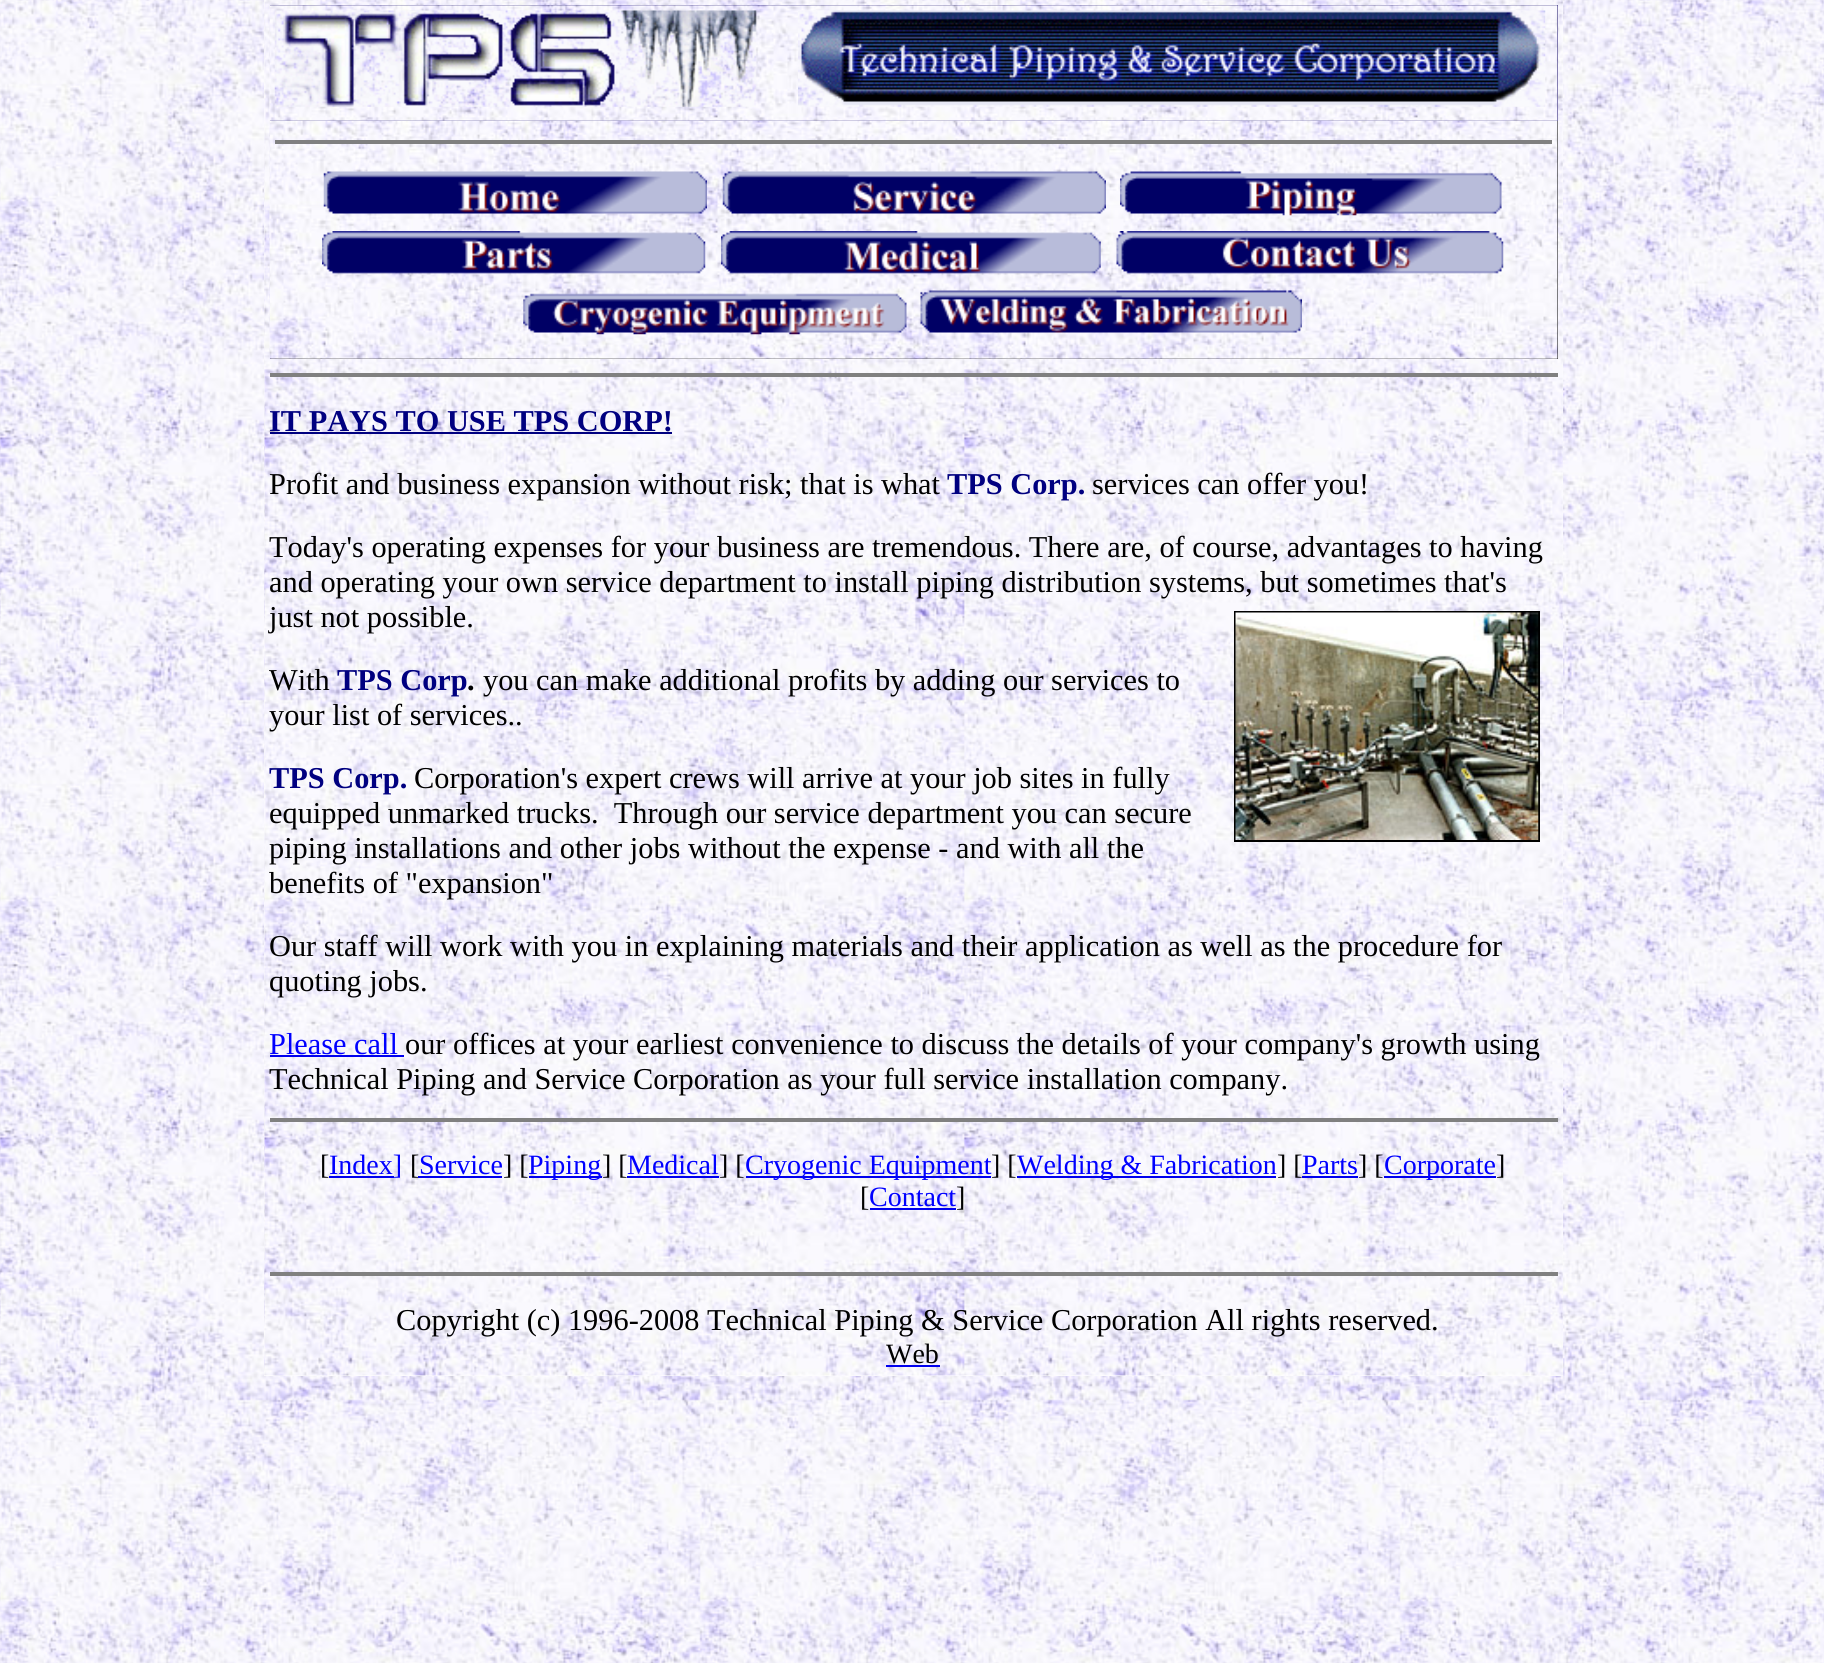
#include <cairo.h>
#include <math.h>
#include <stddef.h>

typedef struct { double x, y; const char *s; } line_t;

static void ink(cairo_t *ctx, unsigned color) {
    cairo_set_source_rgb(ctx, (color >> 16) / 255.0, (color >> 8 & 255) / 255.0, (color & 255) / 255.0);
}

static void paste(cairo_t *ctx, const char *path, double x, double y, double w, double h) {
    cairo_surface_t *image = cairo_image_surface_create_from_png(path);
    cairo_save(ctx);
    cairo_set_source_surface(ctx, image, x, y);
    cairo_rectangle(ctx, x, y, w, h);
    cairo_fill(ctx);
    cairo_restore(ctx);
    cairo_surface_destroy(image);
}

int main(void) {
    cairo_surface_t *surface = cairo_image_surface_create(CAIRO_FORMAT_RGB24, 1824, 1663);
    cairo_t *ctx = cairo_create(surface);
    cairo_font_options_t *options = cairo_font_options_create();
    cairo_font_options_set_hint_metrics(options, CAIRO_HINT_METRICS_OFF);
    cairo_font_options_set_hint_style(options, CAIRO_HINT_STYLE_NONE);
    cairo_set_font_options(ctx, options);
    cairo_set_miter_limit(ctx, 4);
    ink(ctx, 0xFFFFFF);
    cairo_paint(ctx);
    paste(ctx, "media/1.png", 0, 0, 1824, 1663);
    ink(ctx, 0xFFFFFF);
    cairo_rectangle(ctx, 264, 0, 1299, 1376);
    cairo_fill(ctx);
    paste(ctx, "media/2.png", 264, 0, 1299, 1376);
    ink(ctx, 0x120964);
    cairo_rectangle(ctx, 270, 5, 1288, 116);
    cairo_fill(ctx);
    paste(ctx, "media/3.png", 269, 5, 1289, 116);
    paste(ctx, "media/4.png", 274, 10, 483, 97);
    paste(ctx, "media/5.png", 798, 10, 748, 97);
    ink(ctx, 0x000000);
    cairo_rectangle(ctx, 270, 121, 1288, 238);
    cairo_fill(ctx);
    paste(ctx, "media/6.png", 269, 120, 1289, 239);
    ink(ctx, 0x808080);
    cairo_rectangle(ctx, 275, 140, 1277, 4);
    cairo_fill(ctx);
    paste(ctx, "media/7.png", 323, 171, 384, 43);
    paste(ctx, "media/8.png", 722, 171, 384, 43);
    paste(ctx, "media/9.png", 1120, 171, 382, 45);
    paste(ctx, "media/10.png", 322, 231, 384, 43);
    paste(ctx, "media/11.png", 721, 231, 380, 43);
    paste(ctx, "media/12.png", 1116, 231, 388, 43);
    paste(ctx, "media/13.png", 523, 293, 384, 42);
    paste(ctx, "media/14.png", 920, 290, 382, 43);
    cairo_rectangle(ctx, 270, 373, 1288, 4);
    cairo_fill(ctx);
    cairo_select_font_face(ctx, "Liberation Serif", CAIRO_FONT_SLANT_NORMAL, CAIRO_FONT_WEIGHT_BOLD);
    cairo_set_font_size(ctx, 30.35);
    ink(ctx, 0x000080);
    cairo_move_to(ctx, 269, 431);
    cairo_show_text(ctx, "IT PAYS TO USE TPS CORP!");
    cairo_rectangle(ctx, 270, 432, 402, 2);
    cairo_fill(ctx);
    cairo_select_font_face(ctx, "Liberation Serif", CAIRO_FONT_SLANT_NORMAL, CAIRO_FONT_WEIGHT_NORMAL);
    ink(ctx, 0x000000);
    cairo_move_to(ctx, 269, 494);
    cairo_show_text(ctx, "Profit and business expansion without risk; that is what");
    cairo_select_font_face(ctx, "Liberation Serif", CAIRO_FONT_SLANT_NORMAL, CAIRO_FONT_WEIGHT_BOLD);
    ink(ctx, 0x000080);
    cairo_move_to(ctx, 947, 494);
    cairo_show_text(ctx, "TPS Corp.");
    cairo_select_font_face(ctx, "Liberation Serif", CAIRO_FONT_SLANT_NORMAL, CAIRO_FONT_WEIGHT_NORMAL);
    ink(ctx, 0x000000);
    {
        static const line_t items[] = {
            {1092, 494, "services can offer you!"},
            {269, 557, "Today's operating expenses for your business are tremendous. There are, of course, advantages to having"},
            {269, 592, "and operating your own service department to install piping distribution systems, but sometimes that's"},
            {269, 627, "just not possible."},
        };
        for (size_t i = 0; i < sizeof items / sizeof *items; i++) {
            cairo_move_to(ctx, items[i].x, items[i].y);
            cairo_show_text(ctx, items[i].s);
        }
    }
    cairo_rectangle(ctx, 1235, 612, 304, 229);
    cairo_stroke(ctx);
    paste(ctx, "media/15.png", 1235, 612, 304, 228);
    cairo_move_to(ctx, 269, 690);
    cairo_show_text(ctx, "With");
    cairo_select_font_face(ctx, "Liberation Serif", CAIRO_FONT_SLANT_NORMAL, CAIRO_FONT_WEIGHT_BOLD);
    ink(ctx, 0x000080);
    cairo_move_to(ctx, 337, 690);
    cairo_show_text(ctx, "TPS Corp");
    ink(ctx, 0x000000);
    cairo_move_to(ctx, 467, 690);
    cairo_show_text(ctx, ".");
    cairo_select_font_face(ctx, "Liberation Serif", CAIRO_FONT_SLANT_NORMAL, CAIRO_FONT_WEIGHT_NORMAL);
    cairo_move_to(ctx, 483, 690);
    cairo_show_text(ctx, "you can make additional profits by adding our services to");
    cairo_move_to(ctx, 269, 725);
    cairo_show_text(ctx, "your list of services..");
    cairo_select_font_face(ctx, "Liberation Serif", CAIRO_FONT_SLANT_NORMAL, CAIRO_FONT_WEIGHT_BOLD);
    ink(ctx, 0x000080);
    cairo_move_to(ctx, 269, 788);
    cairo_show_text(ctx, "TPS Corp.");
    cairo_select_font_face(ctx, "Liberation Serif", CAIRO_FONT_SLANT_NORMAL, CAIRO_FONT_WEIGHT_NORMAL);
    ink(ctx, 0x000000);
    {
        static const line_t items[] = {
            {414, 788, "Corporation's expert crews will arrive at your job sites in fully"},
            {269, 823, "equipped unmarked trucks.  Through our service department you can secure"},
            {269, 858, "piping installations and other jobs without the expense - and with all the"},
            {269, 893, "benefits of \"expansion\""},
            {269, 956, "Our staff will work with you in explaining materials and their application as well as the procedure for"},
            {269, 991, "quoting jobs."},
        };
        for (size_t i = 0; i < sizeof items / sizeof *items; i++) {
            cairo_move_to(ctx, items[i].x, items[i].y);
            cairo_show_text(ctx, items[i].s);
        }
    }
    ink(ctx, 0x0000FF);
    cairo_move_to(ctx, 269, 1054);
    cairo_show_text(ctx, "Please call");
    ink(ctx, 0x0000EE);
    cairo_rectangle(ctx, 270, 1055, 134, 2);
    cairo_fill(ctx);
    ink(ctx, 0x000000);
    cairo_move_to(ctx, 405, 1054);
    cairo_show_text(ctx, "our offices at your earliest convenience to discuss the details of your company's growth using");
    cairo_move_to(ctx, 269, 1089);
    cairo_show_text(ctx, "Technical Piping and Service Corporation as your full service installation company.");
    ink(ctx, 0x808080);
    cairo_rectangle(ctx, 270, 1118, 1288, 4);
    cairo_fill(ctx);
    cairo_set_font_size(ctx, 28);
    ink(ctx, 0x000000);
    cairo_move_to(ctx, 320, 1174);
    cairo_show_text(ctx, "[");
    ink(ctx, 0x0000EE);
    cairo_rectangle(ctx, 329, 1176, 65, 2);
    cairo_fill(ctx);
    ink(ctx, 0x0000FF);
    cairo_move_to(ctx, 329, 1174);
    cairo_show_text(ctx, "Index]");
    ink(ctx, 0x000000);
    cairo_move_to(ctx, 410, 1174);
    cairo_show_text(ctx, "[");
    ink(ctx, 0x0000FF);
    cairo_move_to(ctx, 419, 1174);
    cairo_show_text(ctx, "Service");
    ink(ctx, 0x0000EE);
    cairo_rectangle(ctx, 418, 1176, 84, 2);
    cairo_fill(ctx);
    ink(ctx, 0x000000);
    cairo_move_to(ctx, 503, 1174);
    cairo_show_text(ctx, "] [");
    ink(ctx, 0x0000EE);
    cairo_rectangle(ctx, 529, 1176, 73, 2);
    cairo_fill(ctx);
    ink(ctx, 0x0000FF);
    cairo_move_to(ctx, 528, 1174);
    cairo_show_text(ctx, "Piping");
    ink(ctx, 0x000000);
    cairo_move_to(ctx, 602, 1174);
    cairo_show_text(ctx, "] [");
    ink(ctx, 0x0000FF);
    cairo_move_to(ctx, 627, 1174);
    cairo_show_text(ctx, "Medical");
    ink(ctx, 0x0000EE);
    cairo_rectangle(ctx, 627, 1176, 92, 2);
    cairo_fill(ctx);
    ink(ctx, 0x000000);
    cairo_move_to(ctx, 719, 1174);
    cairo_show_text(ctx, "] [");
    ink(ctx, 0x0000EE);
    cairo_rectangle(ctx, 746, 1176, 245, 2);
    cairo_fill(ctx);
    ink(ctx, 0x0000FF);
    cairo_move_to(ctx, 745, 1174);
    cairo_show_text(ctx, "Cryogenic Equipment");
    ink(ctx, 0x000000);
    cairo_move_to(ctx, 991, 1174);
    cairo_show_text(ctx, "] [");
    ink(ctx, 0x0000EE);
    cairo_rectangle(ctx, 1017, 1176, 259, 2);
    cairo_fill(ctx);
    ink(ctx, 0x0000FF);
    cairo_move_to(ctx, 1017, 1174);
    cairo_show_text(ctx, "Welding & Fabrication");
    ink(ctx, 0x000000);
    cairo_move_to(ctx, 1277, 1174);
    cairo_show_text(ctx, "] [");
    ink(ctx, 0x0000FF);
    cairo_move_to(ctx, 1302, 1174);
    cairo_show_text(ctx, "Parts");
    ink(ctx, 0x0000EE);
    cairo_rectangle(ctx, 1302, 1176, 56, 2);
    cairo_fill(ctx);
    ink(ctx, 0x000000);
    cairo_move_to(ctx, 1358, 1174);
    cairo_show_text(ctx, "] [");
    ink(ctx, 0x0000EE);
    cairo_rectangle(ctx, 1384, 1176, 112, 2);
    cairo_fill(ctx);
    ink(ctx, 0x0000FF);
    cairo_move_to(ctx, 1384, 1174);
    cairo_show_text(ctx, "Corporate");
    ink(ctx, 0x000000);
    cairo_move_to(ctx, 1496, 1174);
    cairo_show_text(ctx, "]");
    cairo_move_to(ctx, 860, 1206);
    cairo_show_text(ctx, "[");
    ink(ctx, 0x0000FF);
    cairo_move_to(ctx, 869, 1206);
    cairo_show_text(ctx, "Contact");
    ink(ctx, 0x0000EE);
    cairo_rectangle(ctx, 870, 1208, 86, 2);
    cairo_fill(ctx);
    ink(ctx, 0x000000);
    cairo_move_to(ctx, 956, 1206);
    cairo_show_text(ctx, "]");
    ink(ctx, 0x808080);
    cairo_rectangle(ctx, 270, 1272, 1288, 4);
    cairo_fill(ctx);
    cairo_set_font_size(ctx, 30.35);
    ink(ctx, 0x000000);
    cairo_move_to(ctx, 396, 1330);
    cairo_show_text(ctx, "Copyright (c) 1996-2008 Technical Piping & Service Corporation All rights reserved.");
    cairo_set_font_size(ctx, 28);
    cairo_move_to(ctx, 886, 1363);
    cairo_show_text(ctx, "Web");
    ink(ctx, 0x0000EE);
    cairo_rectangle(ctx, 886, 1365, 54, 2);
    cairo_fill(ctx);
    cairo_surface_write_to_png(surface, "image.png");
    cairo_font_options_destroy(options);
    cairo_destroy(ctx);
    cairo_surface_destroy(surface);
    return 0;
}
